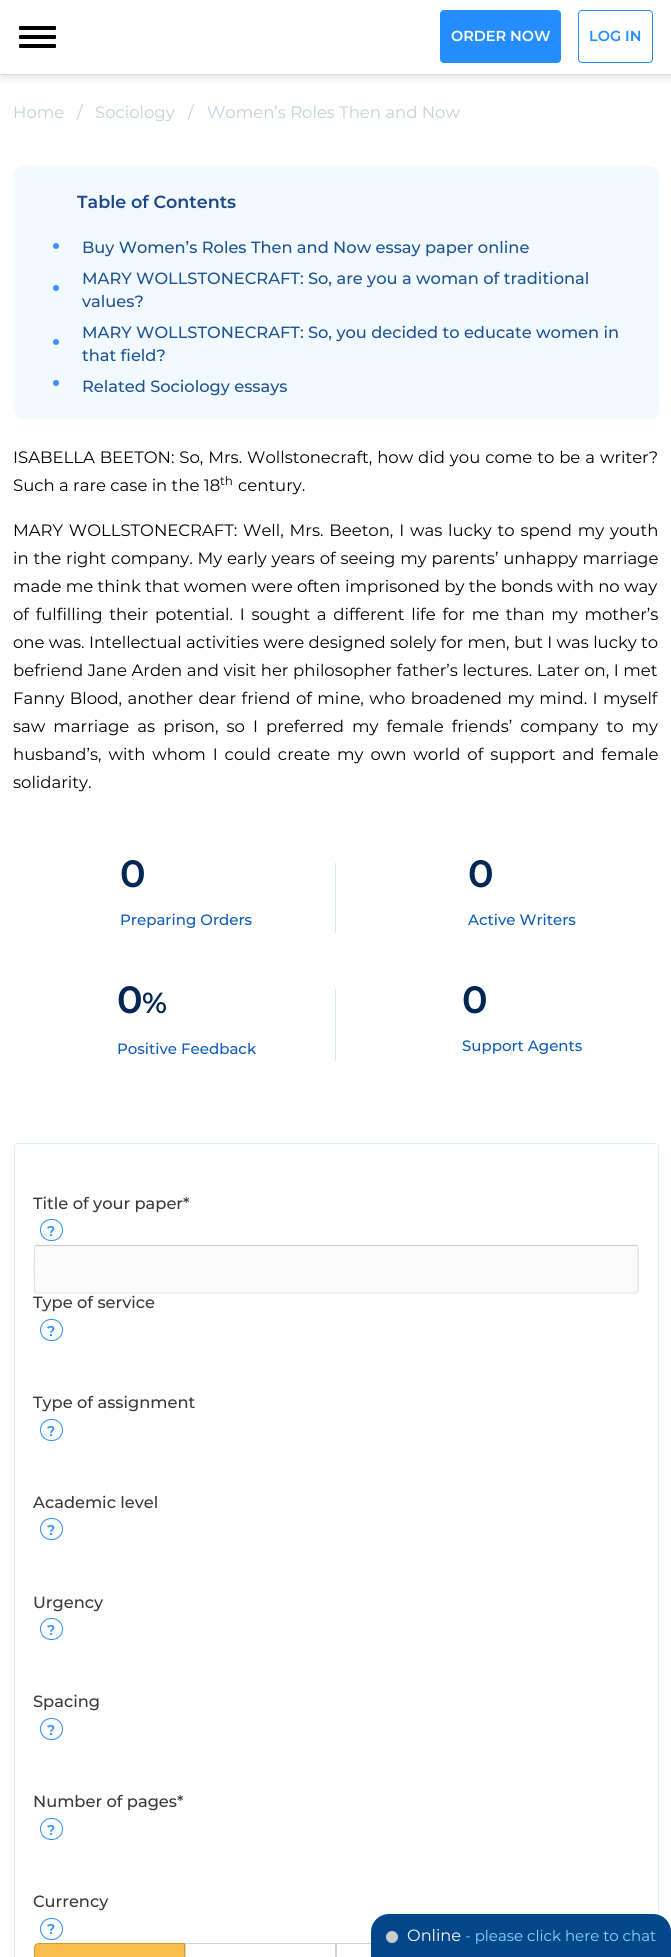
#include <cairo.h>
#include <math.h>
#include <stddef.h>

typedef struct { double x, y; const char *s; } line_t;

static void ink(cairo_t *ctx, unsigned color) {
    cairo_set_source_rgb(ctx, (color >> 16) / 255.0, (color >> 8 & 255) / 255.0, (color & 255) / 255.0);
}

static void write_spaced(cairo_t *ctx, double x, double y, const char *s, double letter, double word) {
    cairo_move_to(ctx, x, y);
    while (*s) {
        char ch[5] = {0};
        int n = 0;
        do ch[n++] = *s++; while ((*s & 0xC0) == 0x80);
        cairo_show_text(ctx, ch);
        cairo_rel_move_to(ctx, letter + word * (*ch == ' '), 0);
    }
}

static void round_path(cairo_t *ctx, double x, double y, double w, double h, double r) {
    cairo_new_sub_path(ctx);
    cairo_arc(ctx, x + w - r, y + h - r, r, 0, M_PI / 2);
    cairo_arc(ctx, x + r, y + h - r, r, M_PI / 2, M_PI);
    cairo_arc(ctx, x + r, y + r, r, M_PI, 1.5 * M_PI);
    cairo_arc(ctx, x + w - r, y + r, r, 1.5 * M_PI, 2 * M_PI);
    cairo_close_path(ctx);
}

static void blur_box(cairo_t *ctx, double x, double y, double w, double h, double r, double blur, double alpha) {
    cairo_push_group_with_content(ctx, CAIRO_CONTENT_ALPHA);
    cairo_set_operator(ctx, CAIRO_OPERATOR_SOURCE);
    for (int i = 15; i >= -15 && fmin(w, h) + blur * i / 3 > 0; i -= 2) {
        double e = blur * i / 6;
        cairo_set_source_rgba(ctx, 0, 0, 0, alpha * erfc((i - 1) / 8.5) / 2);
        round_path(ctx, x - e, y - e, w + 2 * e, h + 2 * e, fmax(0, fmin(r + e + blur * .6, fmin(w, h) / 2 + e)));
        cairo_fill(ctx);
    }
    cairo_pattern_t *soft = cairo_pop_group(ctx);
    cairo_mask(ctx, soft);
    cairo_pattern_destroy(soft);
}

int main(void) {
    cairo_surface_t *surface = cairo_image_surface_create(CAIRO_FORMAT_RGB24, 671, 1957);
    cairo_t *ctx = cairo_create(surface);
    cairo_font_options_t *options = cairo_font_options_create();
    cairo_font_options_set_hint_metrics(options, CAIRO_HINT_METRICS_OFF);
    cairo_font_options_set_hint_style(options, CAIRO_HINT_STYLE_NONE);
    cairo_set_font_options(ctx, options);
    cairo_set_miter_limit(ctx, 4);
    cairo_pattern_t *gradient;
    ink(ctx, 0xFFFFFF);
    cairo_paint(ctx);
    cairo_save(ctx);
    cairo_rectangle(ctx, 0, 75, 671, 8);
    cairo_clip(ctx);
    ink(ctx, 0x000000);
    blur_box(ctx, 1, 1, 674, 78, 0, 4.5, 0.1);
    cairo_restore(ctx);
    ink(ctx, 0xDADADA);
    cairo_rectangle(ctx, 0, 74, 671, 1);
    cairo_fill(ctx);
    ink(ctx, 0x000000);
    round_path(ctx, 19, 26, 37, 4, 1);
    cairo_fill(ctx);
    round_path(ctx, 19, 35, 37, 4, 1);
    cairo_fill(ctx);
    round_path(ctx, 19, 44, 37, 4, 1);
    cairo_fill(ctx);
    ink(ctx, 0x258DFF);
    round_path(ctx, 440.5, 10.5, 120, 52, 3.5);
    cairo_fill_preserve(ctx);
    cairo_set_line_width(ctx, 1);
    cairo_stroke(ctx);
    cairo_select_font_face(ctx, "Montserrat SemiBold", CAIRO_FONT_SLANT_NORMAL, CAIRO_FONT_WEIGHT_NORMAL);
    cairo_set_font_size(ctx, 14.5);
    ink(ctx, 0xFFFFFF);
    cairo_move_to(ctx, 451, 41);
    cairo_show_text(ctx, "ORDER NOW");
    round_path(ctx, 578.5, 10.5, 74, 52, 3.5);
    ink(ctx, 0x258DFF);
    cairo_stroke(ctx);
    cairo_move_to(ctx, 589, 41);
    cairo_show_text(ctx, "LOG IN");
    cairo_select_font_face(ctx, "Montserrat", CAIRO_FONT_SLANT_NORMAL, CAIRO_FONT_WEIGHT_NORMAL);
    cairo_set_font_size(ctx, 16.5);
    ink(ctx, 0xC1CFDD);
    {
        static const line_t items[] = {
            {13, 118, "Home"},
            {77, 118, "/"},
            {95, 118, "Sociology"},
            {188, 118, "/"},
            {207, 118, "Women’s Roles Then and Now"},
        };
        for (size_t i = 0; i < sizeof items / sizeof *items; i++) {
            cairo_move_to(ctx, items[i].x, items[i].y);
            cairo_show_text(ctx, items[i].s);
        }
    }
    ink(ctx, 0xF3FAFF);
    round_path(ctx, 14, 166, 645, 253, 9);
    cairo_fill(ctx);
    cairo_select_font_face(ctx, "Montserrat SemiBold", CAIRO_FONT_SLANT_NORMAL, CAIRO_FONT_WEIGHT_NORMAL);
    cairo_set_font_size(ctx, 17.5);
    ink(ctx, 0x1D458D);
    cairo_move_to(ctx, 77, 208);
    cairo_show_text(ctx, "Table of Contents");
    ink(ctx, 0x418CFE);
    cairo_new_path(ctx);
    cairo_arc(ctx, 56, 246, 3, 0, 2 * M_PI);
    cairo_fill(ctx);
    cairo_select_font_face(ctx, "Montserrat Medium", CAIRO_FONT_SLANT_NORMAL, CAIRO_FONT_WEIGHT_NORMAL);
    cairo_set_font_size(ctx, 16.25);
    ink(ctx, 0x1C5394);
    cairo_move_to(ctx, 82, 253);
    cairo_show_text(ctx, "Buy Women’s Roles Then and Now essay paper online");
    ink(ctx, 0x418CFE);
    cairo_new_path(ctx);
    cairo_arc(ctx, 56, 288, 3, 0, 2 * M_PI);
    cairo_fill(ctx);
    ink(ctx, 0x1C5394);
    cairo_move_to(ctx, 82, 284);
    cairo_show_text(ctx, "MARY WOLLSTONECRAFT: So, are you a woman of traditional");
    cairo_move_to(ctx, 82, 307);
    cairo_show_text(ctx, "values?");
    ink(ctx, 0x418CFE);
    cairo_new_path(ctx);
    cairo_arc(ctx, 56, 342, 3, 0, 2 * M_PI);
    cairo_fill(ctx);
    ink(ctx, 0x1C5394);
    cairo_move_to(ctx, 82, 338);
    cairo_show_text(ctx, "MARY WOLLSTONECRAFT: So, you decided to educate women in");
    cairo_move_to(ctx, 82, 361);
    cairo_show_text(ctx, "that field?");
    ink(ctx, 0x418CFE);
    cairo_new_path(ctx);
    cairo_arc(ctx, 56, 383, 3, 0, 2 * M_PI);
    cairo_fill(ctx);
    ink(ctx, 0x1C5394);
    cairo_move_to(ctx, 82, 392);
    cairo_show_text(ctx, "Related Sociology essays");
    cairo_select_font_face(ctx, "Montserrat", CAIRO_FONT_SLANT_NORMAL, CAIRO_FONT_WEIGHT_NORMAL);
    cairo_set_font_size(ctx, 16.5);
    ink(ctx, 0x000000);
    write_spaced(ctx, 13, 463, "ISABELLA BEETON: So, Mrs. Wollstonecraft, how did you come to be a writer?", 0, 0.6);
    cairo_move_to(ctx, 13, 491);
    cairo_show_text(ctx, "Such a rare case in the 18");
    cairo_set_font_size(ctx, 12);
    cairo_move_to(ctx, 220, 485);
    cairo_show_text(ctx, "th");
    cairo_set_font_size(ctx, 16.5);
    cairo_move_to(ctx, 238, 491);
    cairo_show_text(ctx, "century.");
    write_spaced(ctx, 13, 536, "MARY WOLLSTONECRAFT: Well, Mrs. Beeton, I was lucky to spend my youth", 0, 1.5);
    write_spaced(ctx, 13, 564, "in the right company. My early years of seeing my parents’ unhappy marriage", 0, 0.5);
    cairo_move_to(ctx, 13, 592);
    cairo_show_text(ctx, "made me think that women were often imprisoned by the bonds with no way");
    write_spaced(ctx, 13, 620, "of fulfilling their potential. I sought a different life for me than my mother’s", 0, 2.4);
    cairo_move_to(ctx, 13, 648);
    cairo_show_text(ctx, "one was. Intellectual activities were designed solely for men, but I was lucky to");
    write_spaced(ctx, 13, 676, "befriend Jane Arden and visit her philosopher father’s lectures. Later on, I met", 0, 0.3);
    write_spaced(ctx, 13, 704, "Fanny Blood, another dear friend of mine, who broadened my mind. I myself", 0, 1.1);
    write_spaced(ctx, 13, 732, "saw marriage as prison, so I preferred my female friends’ company to my", 0, 3.75);
    write_spaced(ctx, 13, 760, "husband’s, with whom I could create my own world of support and female", 0, 2.6);
    cairo_move_to(ctx, 13, 788);
    cairo_show_text(ctx, "solidarity.");
    ink(ctx, 0xD3E8FF);
    cairo_rectangle(ctx, 335, 863, 1, 70);
    cairo_fill(ctx);
    cairo_select_font_face(ctx, "Montserrat SemiBold", CAIRO_FONT_SLANT_NORMAL, CAIRO_FONT_WEIGHT_NORMAL);
    cairo_set_font_size(ctx, 38);
    ink(ctx, 0x002653);
    cairo_move_to(ctx, 120, 887);
    cairo_show_text(ctx, "0");
    cairo_select_font_face(ctx, "Montserrat Medium", CAIRO_FONT_SLANT_NORMAL, CAIRO_FONT_WEIGHT_NORMAL);
    cairo_set_font_size(ctx, 15);
    ink(ctx, 0x0D5CBB);
    cairo_move_to(ctx, 120, 925);
    cairo_show_text(ctx, "Preparing Orders");
    cairo_select_font_face(ctx, "Montserrat SemiBold", CAIRO_FONT_SLANT_NORMAL, CAIRO_FONT_WEIGHT_NORMAL);
    cairo_set_font_size(ctx, 38);
    ink(ctx, 0x002653);
    cairo_move_to(ctx, 468, 887);
    cairo_show_text(ctx, "0");
    cairo_select_font_face(ctx, "Montserrat Medium", CAIRO_FONT_SLANT_NORMAL, CAIRO_FONT_WEIGHT_NORMAL);
    cairo_set_font_size(ctx, 15);
    ink(ctx, 0x0D5CBB);
    cairo_move_to(ctx, 468, 925);
    cairo_show_text(ctx, "Active Writers");
    ink(ctx, 0xD3E8FF);
    cairo_rectangle(ctx, 335, 989, 1, 72);
    cairo_fill(ctx);
    cairo_select_font_face(ctx, "Montserrat SemiBold", CAIRO_FONT_SLANT_NORMAL, CAIRO_FONT_WEIGHT_NORMAL);
    cairo_set_font_size(ctx, 38);
    ink(ctx, 0x002653);
    cairo_move_to(ctx, 117, 1013);
    cairo_show_text(ctx, "0");
    cairo_set_font_size(ctx, 29);
    cairo_move_to(ctx, 142, 1013);
    cairo_show_text(ctx, "%");
    cairo_select_font_face(ctx, "Montserrat Medium", CAIRO_FONT_SLANT_NORMAL, CAIRO_FONT_WEIGHT_NORMAL);
    cairo_set_font_size(ctx, 15);
    ink(ctx, 0x0D5CBB);
    cairo_move_to(ctx, 117, 1054);
    cairo_show_text(ctx, "Positive Feedback");
    cairo_select_font_face(ctx, "Montserrat SemiBold", CAIRO_FONT_SLANT_NORMAL, CAIRO_FONT_WEIGHT_NORMAL);
    cairo_set_font_size(ctx, 38);
    ink(ctx, 0x002653);
    cairo_move_to(ctx, 462, 1013);
    cairo_show_text(ctx, "0");
    cairo_select_font_face(ctx, "Montserrat Medium", CAIRO_FONT_SLANT_NORMAL, CAIRO_FONT_WEIGHT_NORMAL);
    cairo_set_font_size(ctx, 15);
    ink(ctx, 0x0D5CBB);
    cairo_move_to(ctx, 462, 1051);
    cairo_show_text(ctx, "Support Agents");
    round_path(ctx, 14.5, 1143.5, 644, 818, 3.5);
    ink(ctx, 0xDCEDFF);
    cairo_stroke(ctx);
    cairo_set_font_size(ctx, 16.25);
    ink(ctx, 0x383838);
    cairo_move_to(ctx, 33, 1209);
    cairo_show_text(ctx, "Title of your paper*");
    round_path(ctx, 40.5, 1219.5, 22, 21, 10.5);
    ink(ctx, 0x258DFF);
    cairo_stroke(ctx);
    cairo_select_font_face(ctx, "Montserrat SemiBold", CAIRO_FONT_SLANT_NORMAL, CAIRO_FONT_WEIGHT_NORMAL);
    cairo_set_font_size(ctx, 14);
    cairo_move_to(ctx, 47, 1236);
    cairo_show_text(ctx, "?");
    ink(ctx, 0xFBFBFB);
    round_path(ctx, 34, 1245, 605, 49, 2.5);
    cairo_fill(ctx);
    cairo_new_path(ctx);
    cairo_move_to(ctx, 35, 1246);
    cairo_line_to(ctx, 36, 1245.5);
    cairo_line_to(ctx, 636, 1245.5);
    cairo_line_to(ctx, 637.5, 1246);
    ink(ctx, 0xCECECE);
    cairo_set_line_width(ctx, 1.2);
    cairo_stroke(ctx);
    cairo_new_path(ctx);
    cairo_move_to(ctx, 637.5, 1246);
    cairo_curve_to(ctx, 638.5, 1247, 638.5, 1291.5, 637.5, 1292.5);
    ink(ctx, 0xE1E1E1);
    cairo_stroke(ctx);
    cairo_new_path(ctx);
    cairo_move_to(ctx, 637.5, 1292.5);
    cairo_line_to(ctx, 636, 1293);
    cairo_line_to(ctx, 36, 1293);
    cairo_line_to(ctx, 35, 1292.5);
    ink(ctx, 0xEBEBEB);
    cairo_stroke(ctx);
    cairo_new_path(ctx);
    cairo_move_to(ctx, 35, 1292.5);
    cairo_curve_to(ctx, 34, 1291.5, 34, 1247, 35, 1246);
    ink(ctx, 0xE1E1E1);
    cairo_stroke(ctx);
    cairo_select_font_face(ctx, "Montserrat Medium", CAIRO_FONT_SLANT_NORMAL, CAIRO_FONT_WEIGHT_NORMAL);
    cairo_set_font_size(ctx, 16.25);
    ink(ctx, 0x383838);
    cairo_move_to(ctx, 33, 1308);
    cairo_show_text(ctx, "Type of service");
    round_path(ctx, 40.5, 1319.5, 22, 21, 10.5);
    ink(ctx, 0x258DFF);
    cairo_set_line_width(ctx, 1);
    cairo_stroke(ctx);
    cairo_select_font_face(ctx, "Montserrat SemiBold", CAIRO_FONT_SLANT_NORMAL, CAIRO_FONT_WEIGHT_NORMAL);
    cairo_set_font_size(ctx, 14);
    cairo_move_to(ctx, 47, 1336);
    cairo_show_text(ctx, "?");
    cairo_select_font_face(ctx, "Montserrat Medium", CAIRO_FONT_SLANT_NORMAL, CAIRO_FONT_WEIGHT_NORMAL);
    cairo_set_font_size(ctx, 16.25);
    ink(ctx, 0x383838);
    cairo_move_to(ctx, 33, 1408);
    cairo_show_text(ctx, "Type of assignment");
    round_path(ctx, 40.5, 1419.5, 22, 21, 10.5);
    ink(ctx, 0x258DFF);
    cairo_stroke(ctx);
    cairo_select_font_face(ctx, "Montserrat SemiBold", CAIRO_FONT_SLANT_NORMAL, CAIRO_FONT_WEIGHT_NORMAL);
    cairo_set_font_size(ctx, 14);
    cairo_move_to(ctx, 47, 1436);
    cairo_show_text(ctx, "?");
    cairo_select_font_face(ctx, "Montserrat Medium", CAIRO_FONT_SLANT_NORMAL, CAIRO_FONT_WEIGHT_NORMAL);
    cairo_set_font_size(ctx, 16.25);
    ink(ctx, 0x383838);
    cairo_move_to(ctx, 33, 1508);
    cairo_show_text(ctx, "Academic level");
    round_path(ctx, 40.5, 1518.5, 22, 21, 10.5);
    ink(ctx, 0x258DFF);
    cairo_stroke(ctx);
    cairo_select_font_face(ctx, "Montserrat SemiBold", CAIRO_FONT_SLANT_NORMAL, CAIRO_FONT_WEIGHT_NORMAL);
    cairo_set_font_size(ctx, 14);
    cairo_move_to(ctx, 47, 1535);
    cairo_show_text(ctx, "?");
    cairo_select_font_face(ctx, "Montserrat Medium", CAIRO_FONT_SLANT_NORMAL, CAIRO_FONT_WEIGHT_NORMAL);
    cairo_set_font_size(ctx, 16.25);
    ink(ctx, 0x383838);
    cairo_move_to(ctx, 33, 1608);
    cairo_show_text(ctx, "Urgency");
    round_path(ctx, 40.5, 1618.5, 22, 21, 10.5);
    ink(ctx, 0x258DFF);
    cairo_stroke(ctx);
    cairo_select_font_face(ctx, "Montserrat SemiBold", CAIRO_FONT_SLANT_NORMAL, CAIRO_FONT_WEIGHT_NORMAL);
    cairo_set_font_size(ctx, 14);
    cairo_move_to(ctx, 47, 1635);
    cairo_show_text(ctx, "?");
    cairo_select_font_face(ctx, "Montserrat Medium", CAIRO_FONT_SLANT_NORMAL, CAIRO_FONT_WEIGHT_NORMAL);
    cairo_set_font_size(ctx, 16.25);
    ink(ctx, 0x383838);
    cairo_move_to(ctx, 33, 1707);
    cairo_show_text(ctx, "Spacing");
    round_path(ctx, 40.5, 1718.5, 22, 21, 10.5);
    ink(ctx, 0x258DFF);
    cairo_stroke(ctx);
    cairo_select_font_face(ctx, "Montserrat SemiBold", CAIRO_FONT_SLANT_NORMAL, CAIRO_FONT_WEIGHT_NORMAL);
    cairo_set_font_size(ctx, 14);
    cairo_move_to(ctx, 47, 1735);
    cairo_show_text(ctx, "?");
    cairo_select_font_face(ctx, "Montserrat Medium", CAIRO_FONT_SLANT_NORMAL, CAIRO_FONT_WEIGHT_NORMAL);
    cairo_set_font_size(ctx, 16.25);
    ink(ctx, 0x383838);
    cairo_move_to(ctx, 33, 1807);
    cairo_show_text(ctx, "Number of pages*");
    round_path(ctx, 40.5, 1818.5, 22, 21, 10.5);
    ink(ctx, 0x258DFF);
    cairo_stroke(ctx);
    cairo_select_font_face(ctx, "Montserrat SemiBold", CAIRO_FONT_SLANT_NORMAL, CAIRO_FONT_WEIGHT_NORMAL);
    cairo_set_font_size(ctx, 14);
    cairo_move_to(ctx, 47, 1835);
    cairo_show_text(ctx, "?");
    cairo_select_font_face(ctx, "Montserrat Medium", CAIRO_FONT_SLANT_NORMAL, CAIRO_FONT_WEIGHT_NORMAL);
    cairo_set_font_size(ctx, 16.25);
    ink(ctx, 0x383838);
    cairo_move_to(ctx, 33, 1907);
    cairo_show_text(ctx, "Currency");
    round_path(ctx, 40.5, 1918.5, 22, 21, 10.5);
    ink(ctx, 0x258DFF);
    cairo_stroke(ctx);
    cairo_select_font_face(ctx, "Montserrat SemiBold", CAIRO_FONT_SLANT_NORMAL, CAIRO_FONT_WEIGHT_NORMAL);
    cairo_set_font_size(ctx, 14);
    cairo_move_to(ctx, 47, 1934);
    cairo_show_text(ctx, "?");
    cairo_save(ctx);
    cairo_new_path(ctx);
    cairo_move_to(ctx, 39, 1943);
    cairo_line_to(ctx, 185, 1943);
    cairo_line_to(ctx, 185, 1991);
    cairo_line_to(ctx, 39, 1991);
    cairo_curve_to(ctx, 36, 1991, 34, 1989, 34, 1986);
    cairo_line_to(ctx, 34, 1948);
    cairo_curve_to(ctx, 34, 1945, 36, 1943, 39, 1943);
    cairo_close_path(ctx);
    cairo_clip(ctx);
    gradient = cairo_pattern_create_linear(109, 1944, 109, 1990);
    cairo_pattern_add_color_stop_rgba(gradient, 0, 0.988, 0.745, 0.294, 1);
    cairo_pattern_add_color_stop_rgba(gradient, 1, 0.957, 0.725, 0.29, 1);
    cairo_set_source(ctx, gradient);
    cairo_pattern_destroy(gradient);
    cairo_rectangle(ctx, 34, 1944, 150, 13);
    cairo_fill(ctx);
    cairo_restore(ctx);
    cairo_new_path(ctx);
    cairo_move_to(ctx, 39, 1943.5);
    cairo_line_to(ctx, 184.5, 1943.5);
    cairo_line_to(ctx, 184.5, 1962.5);
    cairo_line_to(ctx, 39, 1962.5);
    cairo_curve_to(ctx, 36.5, 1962.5, 34.5, 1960.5, 34.5, 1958);
    cairo_line_to(ctx, 34.5, 1948);
    cairo_curve_to(ctx, 34.5, 1945.5, 36.5, 1943.5, 39, 1943.5);
    cairo_close_path(ctx);
    ink(ctx, 0xCD993B);
    cairo_stroke(ctx);
    gradient = cairo_pattern_create_linear(261, 1944, 261, 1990);
    cairo_pattern_add_color_stop_rgba(gradient, 0, 1, 1, 1, 1);
    cairo_pattern_add_color_stop_rgba(gradient, 1, 0.957, 0.961, 0.965, 1);
    cairo_set_source(ctx, gradient);
    cairo_pattern_destroy(gradient);
    cairo_rectangle(ctx, 186, 1954, 149, 3);
    cairo_fill(ctx);
    cairo_rectangle(ctx, 185.5, 1943.5, 150, 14);
    ink(ctx, 0xD3D3D3);
    cairo_stroke(ctx);
    gradient = cairo_pattern_create_linear(412, 1944, 412, 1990);
    cairo_pattern_add_color_stop_rgba(gradient, 0, 1, 1, 1, 1);
    cairo_pattern_add_color_stop_rgba(gradient, 1, 0.957, 0.961, 0.965, 1);
    cairo_set_source(ctx, gradient);
    cairo_pattern_destroy(gradient);
    cairo_rectangle(ctx, 337, 1954, 34, 3);
    cairo_fill(ctx);
    cairo_rectangle(ctx, 336.5, 1943.5, 151, 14);
    ink(ctx, 0xD3D3D3);
    cairo_stroke(ctx);
    ink(ctx, 0x01478A);
    cairo_new_path(ctx);
    cairo_move_to(ctx, 389, 1914);
    cairo_line_to(ctx, 653, 1914);
    cairo_curve_to(ctx, 663, 1914, 671, 1922, 671, 1932);
    cairo_line_to(ctx, 671, 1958);
    cairo_line_to(ctx, 371, 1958);
    cairo_line_to(ctx, 371, 1932);
    cairo_curve_to(ctx, 371, 1922, 379, 1914, 389, 1914);
    cairo_close_path(ctx);
    cairo_fill(ctx);
    ink(ctx, 0xCCCCCC);
    cairo_arc(ctx, 392, 1937, 6, 0, 2 * M_PI);
    cairo_fill(ctx);
    cairo_select_font_face(ctx, "Montserrat", CAIRO_FONT_SLANT_NORMAL, CAIRO_FONT_WEIGHT_NORMAL);
    cairo_set_font_size(ctx, 16.25);
    ink(ctx, 0xFFFFFF);
    cairo_move_to(ctx, 407, 1941);
    cairo_show_text(ctx, "Online");
    cairo_set_font_size(ctx, 15);
    ink(ctx, 0x84DAFA);
    cairo_move_to(ctx, 465, 1941);
    cairo_show_text(ctx, "- please click here to chat");
    cairo_surface_write_to_png(surface, "image.png");
    cairo_font_options_destroy(options);
    cairo_destroy(ctx);
    cairo_surface_destroy(surface);
    return 0;
}
